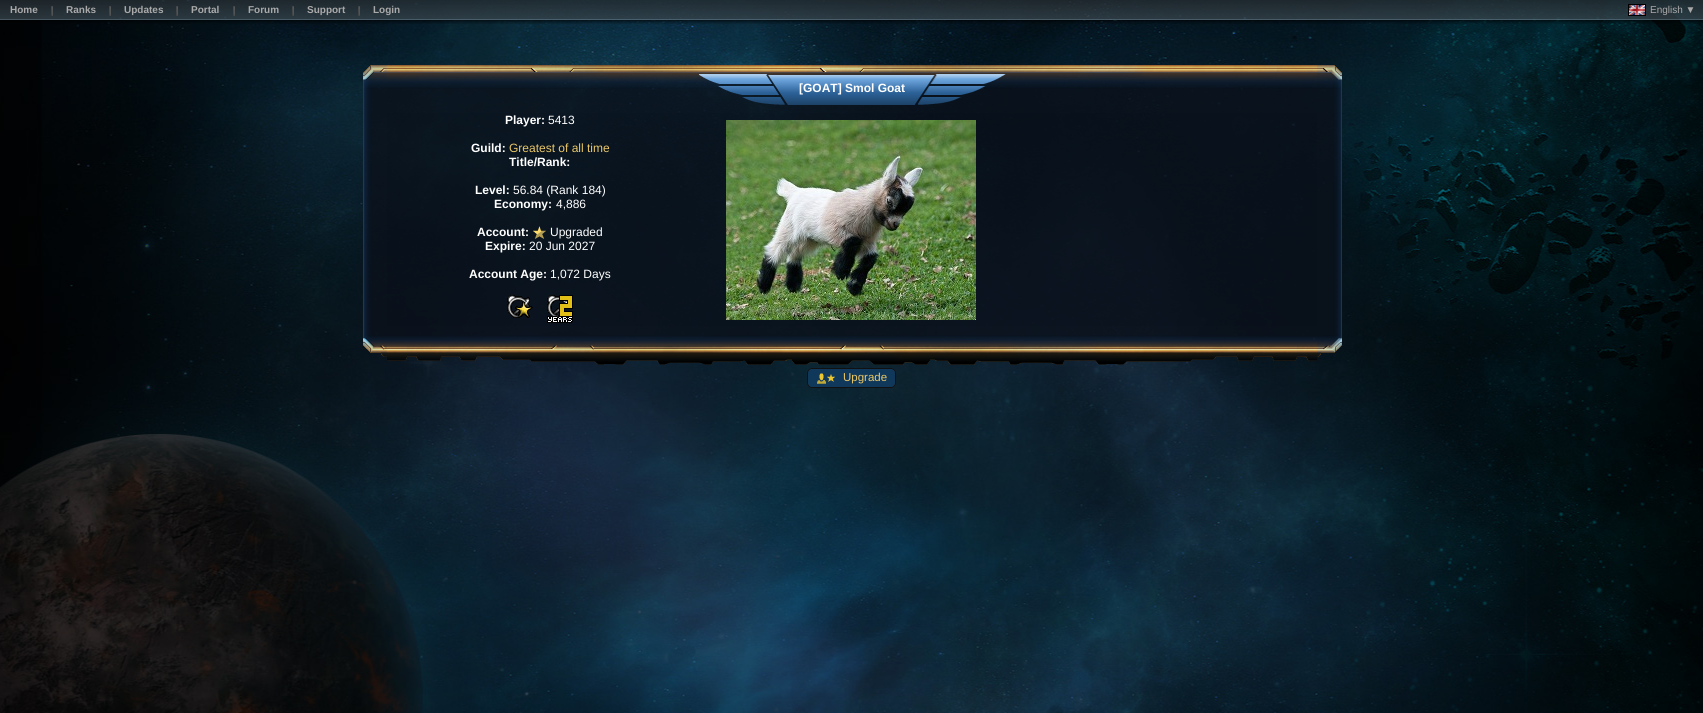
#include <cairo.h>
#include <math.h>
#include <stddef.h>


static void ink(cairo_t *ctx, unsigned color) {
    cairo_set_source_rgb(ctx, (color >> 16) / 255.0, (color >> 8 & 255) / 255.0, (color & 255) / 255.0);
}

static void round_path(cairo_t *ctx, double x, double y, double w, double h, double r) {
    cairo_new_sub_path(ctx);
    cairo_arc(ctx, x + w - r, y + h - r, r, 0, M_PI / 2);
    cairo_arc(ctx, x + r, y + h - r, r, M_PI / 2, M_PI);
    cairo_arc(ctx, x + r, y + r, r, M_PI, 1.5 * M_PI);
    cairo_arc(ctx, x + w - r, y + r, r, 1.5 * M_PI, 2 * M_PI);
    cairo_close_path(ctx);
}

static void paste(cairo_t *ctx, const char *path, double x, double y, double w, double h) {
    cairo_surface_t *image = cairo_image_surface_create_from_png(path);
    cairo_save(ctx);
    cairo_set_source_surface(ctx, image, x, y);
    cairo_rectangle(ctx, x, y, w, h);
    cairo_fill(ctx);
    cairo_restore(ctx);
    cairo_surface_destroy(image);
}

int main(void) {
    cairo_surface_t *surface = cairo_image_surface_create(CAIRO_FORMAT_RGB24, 1703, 713);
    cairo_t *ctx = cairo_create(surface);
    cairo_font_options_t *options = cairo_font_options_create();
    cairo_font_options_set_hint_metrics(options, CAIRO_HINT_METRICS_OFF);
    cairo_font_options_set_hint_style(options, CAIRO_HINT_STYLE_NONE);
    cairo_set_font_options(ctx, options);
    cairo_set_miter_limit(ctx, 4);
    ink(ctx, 0xFFFFFF);
    cairo_paint(ctx);
    paste(ctx, "media/1.png", 0, 0, 1703, 713);
    paste(ctx, "media/2.png", 0, 0, 1703, 24);
    cairo_select_font_face(ctx, "Liberation Sans", CAIRO_FONT_SLANT_NORMAL, CAIRO_FONT_WEIGHT_BOLD);
    cairo_set_font_size(ctx, 10);
    ink(ctx, 0xAAAAAA);
    cairo_move_to(ctx, 10, 13);
    cairo_show_text(ctx, "Home");
    paste(ctx, "media/3.png", 51, 6, 2, 10);
    cairo_move_to(ctx, 66, 13);
    cairo_show_text(ctx, "Ranks");
    paste(ctx, "media/4.png", 109, 6, 2, 10);
    cairo_move_to(ctx, 124, 13);
    cairo_show_text(ctx, "Updates");
    paste(ctx, "media/5.png", 176, 6, 2, 10);
    cairo_move_to(ctx, 191, 13);
    cairo_show_text(ctx, "Portal");
    paste(ctx, "media/6.png", 233, 6, 2, 10);
    cairo_move_to(ctx, 248, 13);
    cairo_show_text(ctx, "Forum");
    paste(ctx, "media/7.png", 292, 6, 2, 10);
    cairo_move_to(ctx, 307, 13);
    cairo_show_text(ctx, "Support");
    paste(ctx, "media/8.png", 358, 6, 2, 10);
    cairo_move_to(ctx, 373, 13);
    cairo_show_text(ctx, "Login");
    paste(ctx, "media/9.png", 1628, 4, 18, 12);
    cairo_select_font_face(ctx, "Liberation Sans", CAIRO_FONT_SLANT_NORMAL, CAIRO_FONT_WEIGHT_NORMAL);
    cairo_move_to(ctx, 1650, 13);
    cairo_show_text(ctx, "English ▼");
    paste(ctx, "media/10.png", 363, 65, 24, 48);
    paste(ctx, "media/11.png", 387, 65, 930, 48);
    paste(ctx, "media/12.png", 699, 74, 90, 31);
    paste(ctx, "media/13.png", 789, 75, 126, 30);
    cairo_select_font_face(ctx, "Liberation Sans", CAIRO_FONT_SLANT_NORMAL, CAIRO_FONT_WEIGHT_BOLD);
    cairo_set_font_size(ctx, 12);
    ink(ctx, 0xFFFFFF);
    cairo_move_to(ctx, 799, 92);
    cairo_show_text(ctx, "[GOAT] Smol Goat");
    paste(ctx, "media/14.png", 915, 74, 91, 31);
    paste(ctx, "media/15.png", 1317, 65, 25, 48);
    paste(ctx, "media/16.png", 363, 113, 24, 213);
    cairo_set_source_rgba(ctx, 0.039, 0.063, 0.102, 0.8);
    cairo_rectangle(ctx, 387, 113, 930, 213);
    cairo_fill(ctx);
    ink(ctx, 0xFFFFFF);
    cairo_move_to(ctx, 505, 124);
    cairo_show_text(ctx, "Player:");
    cairo_select_font_face(ctx, "Liberation Sans", CAIRO_FONT_SLANT_NORMAL, CAIRO_FONT_WEIGHT_NORMAL);
    cairo_move_to(ctx, 548, 124);
    cairo_show_text(ctx, "5413");
    cairo_select_font_face(ctx, "Liberation Sans", CAIRO_FONT_SLANT_NORMAL, CAIRO_FONT_WEIGHT_BOLD);
    cairo_move_to(ctx, 471, 152);
    cairo_show_text(ctx, "Guild:");
    cairo_select_font_face(ctx, "Liberation Sans", CAIRO_FONT_SLANT_NORMAL, CAIRO_FONT_WEIGHT_NORMAL);
    ink(ctx, 0xEAC767);
    cairo_move_to(ctx, 509, 152);
    cairo_show_text(ctx, "Greatest of all time");
    cairo_select_font_face(ctx, "Liberation Sans", CAIRO_FONT_SLANT_NORMAL, CAIRO_FONT_WEIGHT_BOLD);
    ink(ctx, 0xFFFFFF);
    cairo_move_to(ctx, 509, 166);
    cairo_show_text(ctx, "Title/Rank:");
    cairo_move_to(ctx, 475, 194);
    cairo_show_text(ctx, "Level:");
    cairo_select_font_face(ctx, "Liberation Sans", CAIRO_FONT_SLANT_NORMAL, CAIRO_FONT_WEIGHT_NORMAL);
    cairo_move_to(ctx, 513, 194);
    cairo_show_text(ctx, "56.84 (Rank 184)");
    cairo_select_font_face(ctx, "Liberation Sans", CAIRO_FONT_SLANT_NORMAL, CAIRO_FONT_WEIGHT_BOLD);
    cairo_move_to(ctx, 494, 208);
    cairo_show_text(ctx, "Economy:");
    cairo_select_font_face(ctx, "Liberation Sans", CAIRO_FONT_SLANT_NORMAL, CAIRO_FONT_WEIGHT_NORMAL);
    cairo_move_to(ctx, 556, 208);
    cairo_show_text(ctx, "4,886");
    cairo_select_font_face(ctx, "Liberation Sans", CAIRO_FONT_SLANT_NORMAL, CAIRO_FONT_WEIGHT_BOLD);
    cairo_move_to(ctx, 477, 236);
    cairo_show_text(ctx, "Account:");
    paste(ctx, "media/17.png", 533, 226, 13, 13);
    cairo_select_font_face(ctx, "Liberation Sans", CAIRO_FONT_SLANT_NORMAL, CAIRO_FONT_WEIGHT_NORMAL);
    cairo_move_to(ctx, 550, 236);
    cairo_show_text(ctx, "Upgraded");
    cairo_select_font_face(ctx, "Liberation Sans", CAIRO_FONT_SLANT_NORMAL, CAIRO_FONT_WEIGHT_BOLD);
    cairo_move_to(ctx, 485, 250);
    cairo_show_text(ctx, "Expire:");
    cairo_select_font_face(ctx, "Liberation Sans", CAIRO_FONT_SLANT_NORMAL, CAIRO_FONT_WEIGHT_NORMAL);
    cairo_move_to(ctx, 529, 250);
    cairo_show_text(ctx, "20 Jun 2027");
    cairo_select_font_face(ctx, "Liberation Sans", CAIRO_FONT_SLANT_NORMAL, CAIRO_FONT_WEIGHT_BOLD);
    cairo_move_to(ctx, 469, 278);
    cairo_show_text(ctx, "Account Age:");
    cairo_select_font_face(ctx, "Liberation Sans", CAIRO_FONT_SLANT_NORMAL, CAIRO_FONT_WEIGHT_NORMAL);
    cairo_move_to(ctx, 550, 278);
    cairo_show_text(ctx, "1,072 Days");
    paste(ctx, "media/18.png", 507, 295, 26, 23);
    paste(ctx, "media/19.png", 547, 295, 26, 28);
    paste(ctx, "media/20.png", 726, 120, 250, 200);
    paste(ctx, "media/21.png", 1317, 113, 25, 213);
    paste(ctx, "media/22.png", 363, 326, 24, 31);
    paste(ctx, "media/23.png", 387, 326, 930, 39);
    paste(ctx, "media/24.png", 1317, 326, 25, 31);
    ink(ctx, 0x10385A);
    round_path(ctx, 807, 368, 89, 20, 5);
    cairo_fill(ctx);
    paste(ctx, "media/25.png", 817, 373, 18, 11);
    round_path(ctx, 807.5, 368.5, 88, 19, 4.5);
    ink(ctx, 0x111111);
    cairo_set_line_width(ctx, 1);
    cairo_stroke(ctx);
    cairo_set_font_size(ctx, 11.5);
    ink(ctx, 0xEAC767);
    cairo_move_to(ctx, 843, 381);
    cairo_show_text(ctx, "Upgrade");
    cairo_surface_write_to_png(surface, "image.png");
    cairo_font_options_destroy(options);
    cairo_destroy(ctx);
    cairo_surface_destroy(surface);
    return 0;
}
